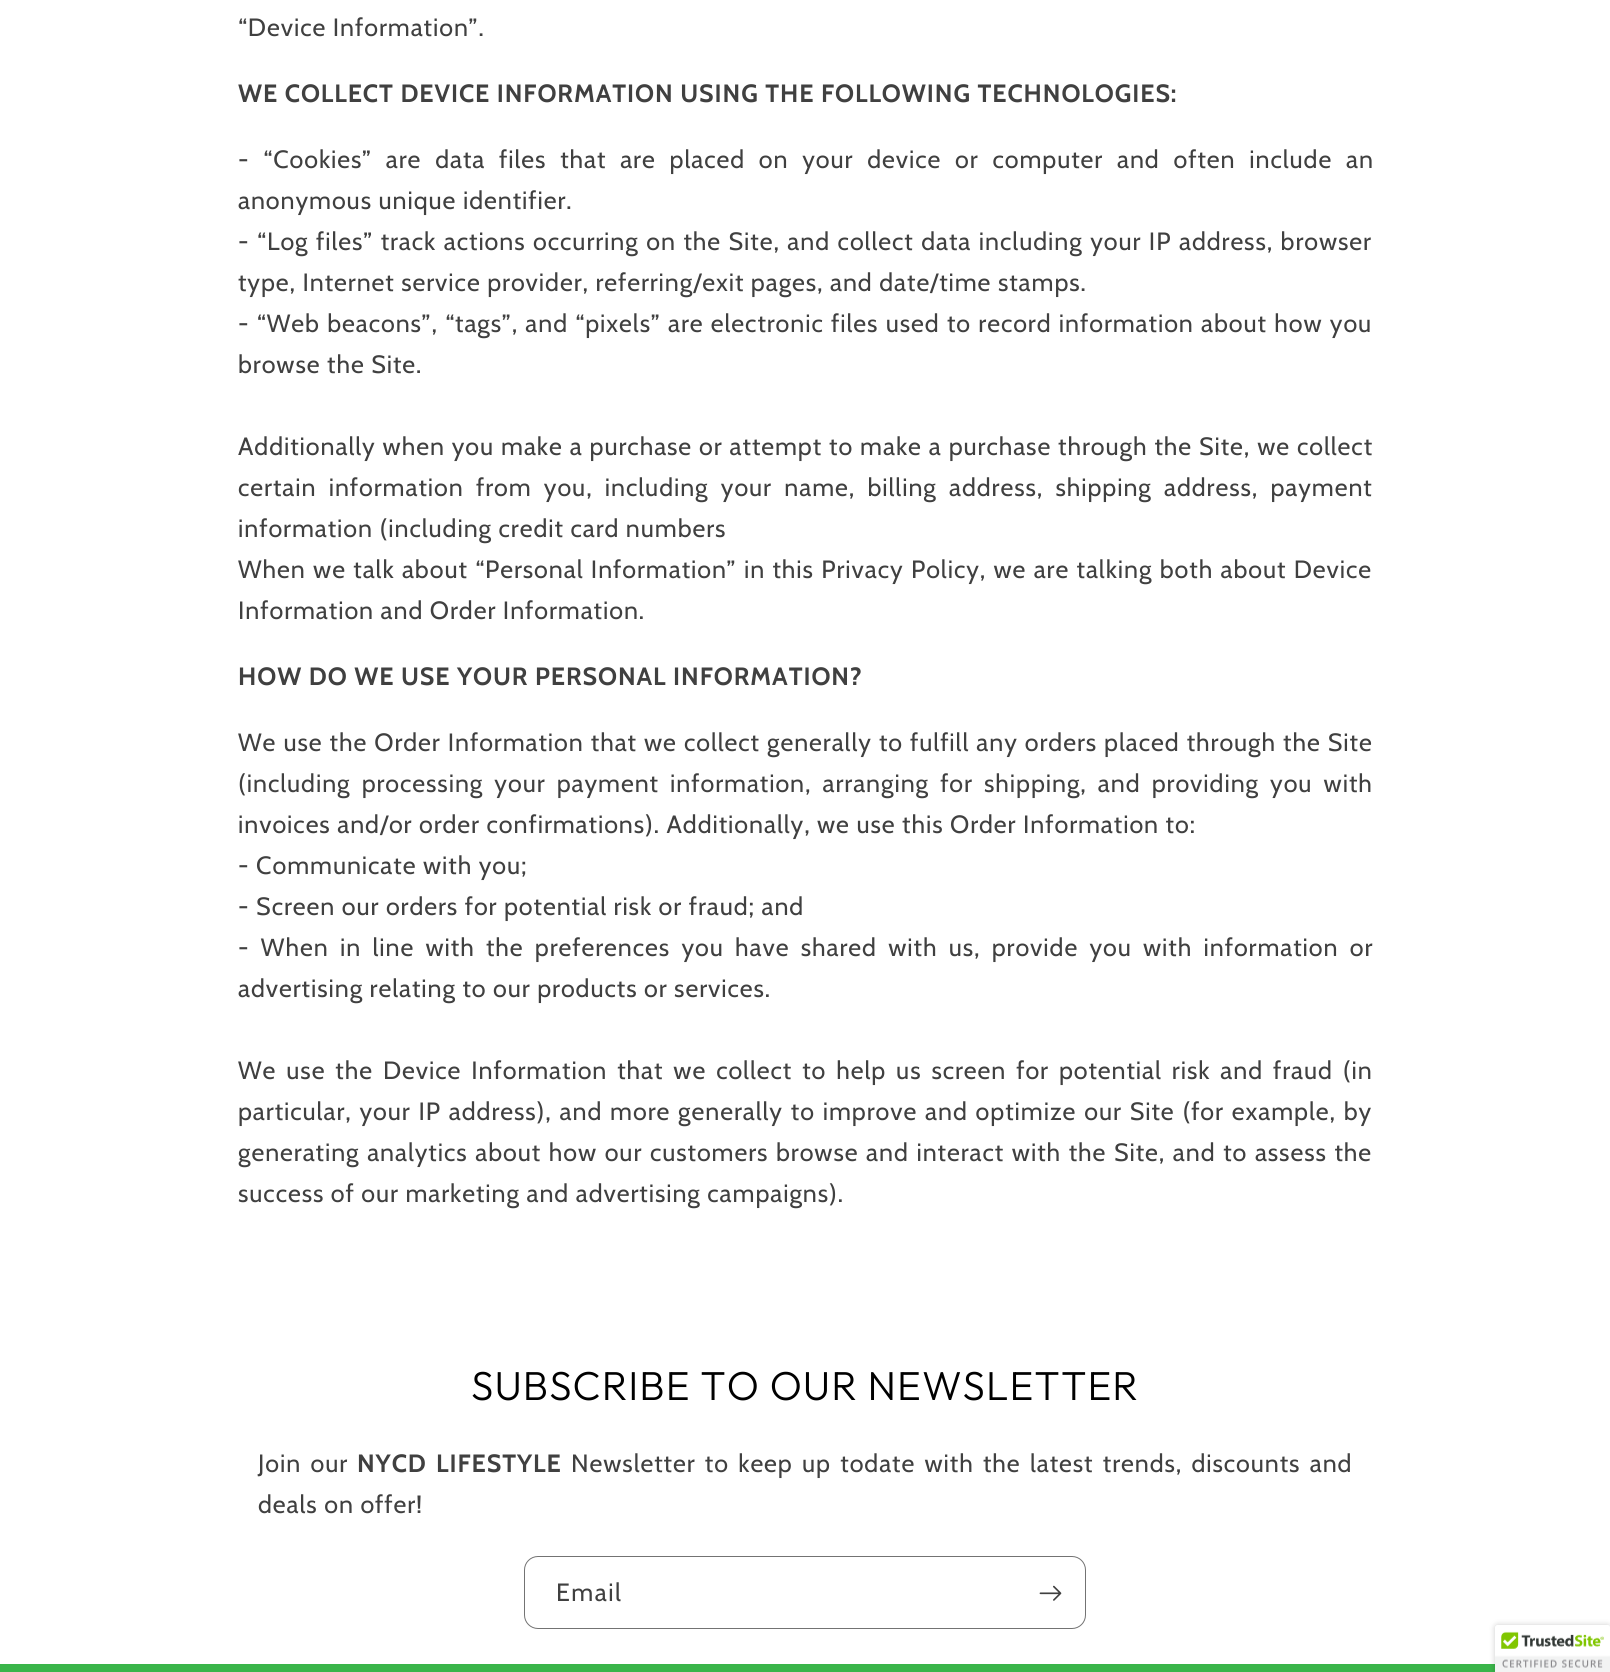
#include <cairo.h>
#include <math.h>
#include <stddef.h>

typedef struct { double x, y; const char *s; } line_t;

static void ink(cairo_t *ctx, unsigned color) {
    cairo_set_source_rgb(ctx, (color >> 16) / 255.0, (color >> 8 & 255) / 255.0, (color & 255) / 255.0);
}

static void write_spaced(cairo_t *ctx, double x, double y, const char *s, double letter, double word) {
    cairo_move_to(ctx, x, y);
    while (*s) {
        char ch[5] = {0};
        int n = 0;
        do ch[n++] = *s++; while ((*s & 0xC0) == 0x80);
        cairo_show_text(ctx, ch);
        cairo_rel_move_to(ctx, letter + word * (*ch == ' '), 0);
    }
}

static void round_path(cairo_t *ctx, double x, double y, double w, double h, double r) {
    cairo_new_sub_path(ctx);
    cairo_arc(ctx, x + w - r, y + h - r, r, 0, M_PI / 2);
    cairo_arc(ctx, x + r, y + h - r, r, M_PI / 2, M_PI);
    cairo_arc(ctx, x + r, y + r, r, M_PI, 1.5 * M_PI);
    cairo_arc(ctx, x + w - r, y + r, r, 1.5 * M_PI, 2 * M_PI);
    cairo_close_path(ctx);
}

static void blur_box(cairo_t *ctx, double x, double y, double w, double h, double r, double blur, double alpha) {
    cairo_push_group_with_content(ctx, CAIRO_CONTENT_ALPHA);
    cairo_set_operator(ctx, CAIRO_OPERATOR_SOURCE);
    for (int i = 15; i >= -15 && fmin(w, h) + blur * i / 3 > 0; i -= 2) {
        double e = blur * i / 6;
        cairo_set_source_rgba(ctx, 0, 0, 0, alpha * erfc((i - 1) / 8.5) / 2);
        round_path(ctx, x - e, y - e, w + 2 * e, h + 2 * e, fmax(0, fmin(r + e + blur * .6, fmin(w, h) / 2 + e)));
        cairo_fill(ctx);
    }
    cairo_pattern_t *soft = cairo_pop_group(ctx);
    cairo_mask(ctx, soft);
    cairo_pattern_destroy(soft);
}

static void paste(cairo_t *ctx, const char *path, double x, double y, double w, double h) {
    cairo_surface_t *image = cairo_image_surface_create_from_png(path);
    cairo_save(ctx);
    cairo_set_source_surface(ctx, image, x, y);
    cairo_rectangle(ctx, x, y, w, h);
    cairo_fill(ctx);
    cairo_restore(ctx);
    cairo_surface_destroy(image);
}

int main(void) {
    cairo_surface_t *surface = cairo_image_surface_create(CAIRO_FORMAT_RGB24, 1610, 1672);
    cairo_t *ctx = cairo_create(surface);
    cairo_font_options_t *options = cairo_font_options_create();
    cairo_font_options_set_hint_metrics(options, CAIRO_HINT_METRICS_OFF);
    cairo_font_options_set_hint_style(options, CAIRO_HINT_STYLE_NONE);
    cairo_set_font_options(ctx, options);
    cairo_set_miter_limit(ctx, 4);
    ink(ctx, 0xFFFFFF);
    cairo_paint(ctx);
    cairo_select_font_face(ctx, "Cabin", CAIRO_FONT_SLANT_NORMAL, CAIRO_FONT_WEIGHT_NORMAL);
    cairo_set_font_size(ctx, 25);
    ink(ctx, 0x404040);
    write_spaced(ctx, 238, 36, "“Device Information”.", 0.94, 0);
    cairo_select_font_face(ctx, "Cabin", CAIRO_FONT_SLANT_NORMAL, CAIRO_FONT_WEIGHT_BOLD);
    write_spaced(ctx, 238, 102, "WE COLLECT DEVICE INFORMATION USING THE FOLLOWING TECHNOLOGIES:", 0.94, 0);
    cairo_select_font_face(ctx, "Cabin", CAIRO_FONT_SLANT_NORMAL, CAIRO_FONT_WEIGHT_NORMAL);
    write_spaced(ctx, 238, 168, "- “Cookies” are data files that are placed on your device or computer and often include an", 0.94, 7.25);
    write_spaced(ctx, 238, 209, "anonymous unique identifier.", 0.94, 0);
    write_spaced(ctx, 238, 250, "- “Log files” track actions occurring on the Site, and collect data including your IP address, browser", 0.94, 1);
    write_spaced(ctx, 238, 291, "type, Internet service provider, referring/exit pages, and date/time stamps.", 0.94, 0);
    write_spaced(ctx, 238, 332, "- “Web beacons”, “tags”, and “pixels” are electronic files used to record information about how you", 0.94, 0.75);
    write_spaced(ctx, 238, 373, "browse the Site.", 0.94, 0);
    write_spaced(ctx, 238, 455, "Additionally when you make a purchase or attempt to make a purchase through the Site, we collect", 0.94, 0.4);
    write_spaced(ctx, 238, 496, "certain information from you, including your name, billing address, shipping address, payment", 0.94, 5.75);
    write_spaced(ctx, 238, 537, "information (including credit card numbers", 0.94, 0);
    write_spaced(ctx, 238, 578, "When we talk about “Personal Information” in this Privacy Policy, we are talking both about Device", 0.94, 0.8);
    write_spaced(ctx, 238, 619, "Information and Order Information.", 0.94, 0);
    cairo_select_font_face(ctx, "Cabin", CAIRO_FONT_SLANT_NORMAL, CAIRO_FONT_WEIGHT_BOLD);
    write_spaced(ctx, 238, 685, "HOW DO WE USE YOUR PERSONAL INFORMATION?", 0.94, 0);
    cairo_select_font_face(ctx, "Cabin", CAIRO_FONT_SLANT_NORMAL, CAIRO_FONT_WEIGHT_NORMAL);
    write_spaced(ctx, 238, 751, "We use the Order Information that we collect generally to fulfill any orders placed through the Site", 0.94, 0.5);
    write_spaced(ctx, 238, 792, "(including processing your payment information, arranging for shipping, and providing you with", 0.94, 4.6);
    {
        static const line_t items[] = {
            {238, 833, "invoices and/or order confirmations). Additionally, we use this Order Information to:"},
            {238, 874, "- Communicate with you;"},
            {238, 915, "- Screen our orders for potential risk or fraud; and"},
        };
        for (size_t i = 0; i < sizeof items / sizeof *items; i++) {
            write_spaced(ctx, items[i].x, items[i].y, items[i].s, 0.94, 0);
        }
    }
    write_spaced(ctx, 238, 956, "- When in line with the preferences you have shared with us, provide you with information or", 0.94, 4.75);
    write_spaced(ctx, 238, 997, "advertising relating to our products or services.", 0.94, 0);
    write_spaced(ctx, 238, 1079, "We use the Device Information that we collect to help us screen for potential risk and fraud (in", 0.94, 3.4);
    write_spaced(ctx, 238, 1120, "particular, your IP address), and more generally to improve and optimize our Site (for example, by", 0.94, 1.3);
    write_spaced(ctx, 238, 1161, "generating analytics about how our customers browse and interact with the Site, and to assess the", 0.94, 1.1);
    write_spaced(ctx, 238, 1202, "success of our marketing and advertising campaigns).", 0.94, 0);
    cairo_select_font_face(ctx, "Outfit Light", CAIRO_FONT_SLANT_NORMAL, CAIRO_FONT_WEIGHT_NORMAL);
    cairo_set_font_size(ctx, 40.5);
    ink(ctx, 0x000000);
    write_spaced(ctx, 471, 1400, "SUBSCRIBE TO OUR NEWSLETTER", 1, 0);
    cairo_select_font_face(ctx, "Cabin", CAIRO_FONT_SLANT_NORMAL, CAIRO_FONT_WEIGHT_NORMAL);
    cairo_set_font_size(ctx, 25);
    ink(ctx, 0x404040);
    write_spaced(ctx, 258, 1472, "Join our", 0.94, 2.75);
    cairo_select_font_face(ctx, "Cabin", CAIRO_FONT_SLANT_NORMAL, CAIRO_FONT_WEIGHT_BOLD);
    write_spaced(ctx, 357, 1472, "NYCD LIFESTYLE", 0.94, 2.75);
    cairo_select_font_face(ctx, "Cabin", CAIRO_FONT_SLANT_NORMAL, CAIRO_FONT_WEIGHT_NORMAL);
    write_spaced(ctx, 571, 1472, "Newsletter to keep up todate with the latest trends, discounts and", 0.94, 2.75);
    write_spaced(ctx, 258, 1513, "deals on offer!", 0.94, 0);
    round_path(ctx, 524.5, 1556.5, 561, 72, 13.5);
    ink(ctx, 0x737373);
    cairo_set_line_width(ctx, 1);
    cairo_stroke(ctx);
    ink(ctx, 0x404040);
    write_spaced(ctx, 556, 1601, "Email", 1.5, 0);
    paste(ctx, "media/1.png", 1039, 1585, 23, 16);
    ink(ctx, 0x3AB54A);
    cairo_rectangle(ctx, 0, 1664, 1495, 8);
    cairo_fill(ctx);
    ink(ctx, 0x000000);
    blur_box(ctx, 1495, 1625, 115, 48, 2.5, 3, 0.2);
    ink(ctx, 0xFFFFFF);
    cairo_new_path(ctx);
    cairo_move_to(ctx, 1497.5, 1625);
    cairo_line_to(ctx, 1610, 1625);
    cairo_line_to(ctx, 1610, 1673);
    cairo_line_to(ctx, 1495, 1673);
    cairo_line_to(ctx, 1495, 1627.5);
    cairo_curve_to(ctx, 1495, 1626, 1496, 1625, 1497.5, 1625);
    cairo_close_path(ctx);
    cairo_fill(ctx);
    paste(ctx, "media/2.png", 1495, 1625, 115, 47);
    cairo_surface_write_to_png(surface, "image.png");
    cairo_font_options_destroy(options);
    cairo_destroy(ctx);
    cairo_surface_destroy(surface);
    return 0;
}
